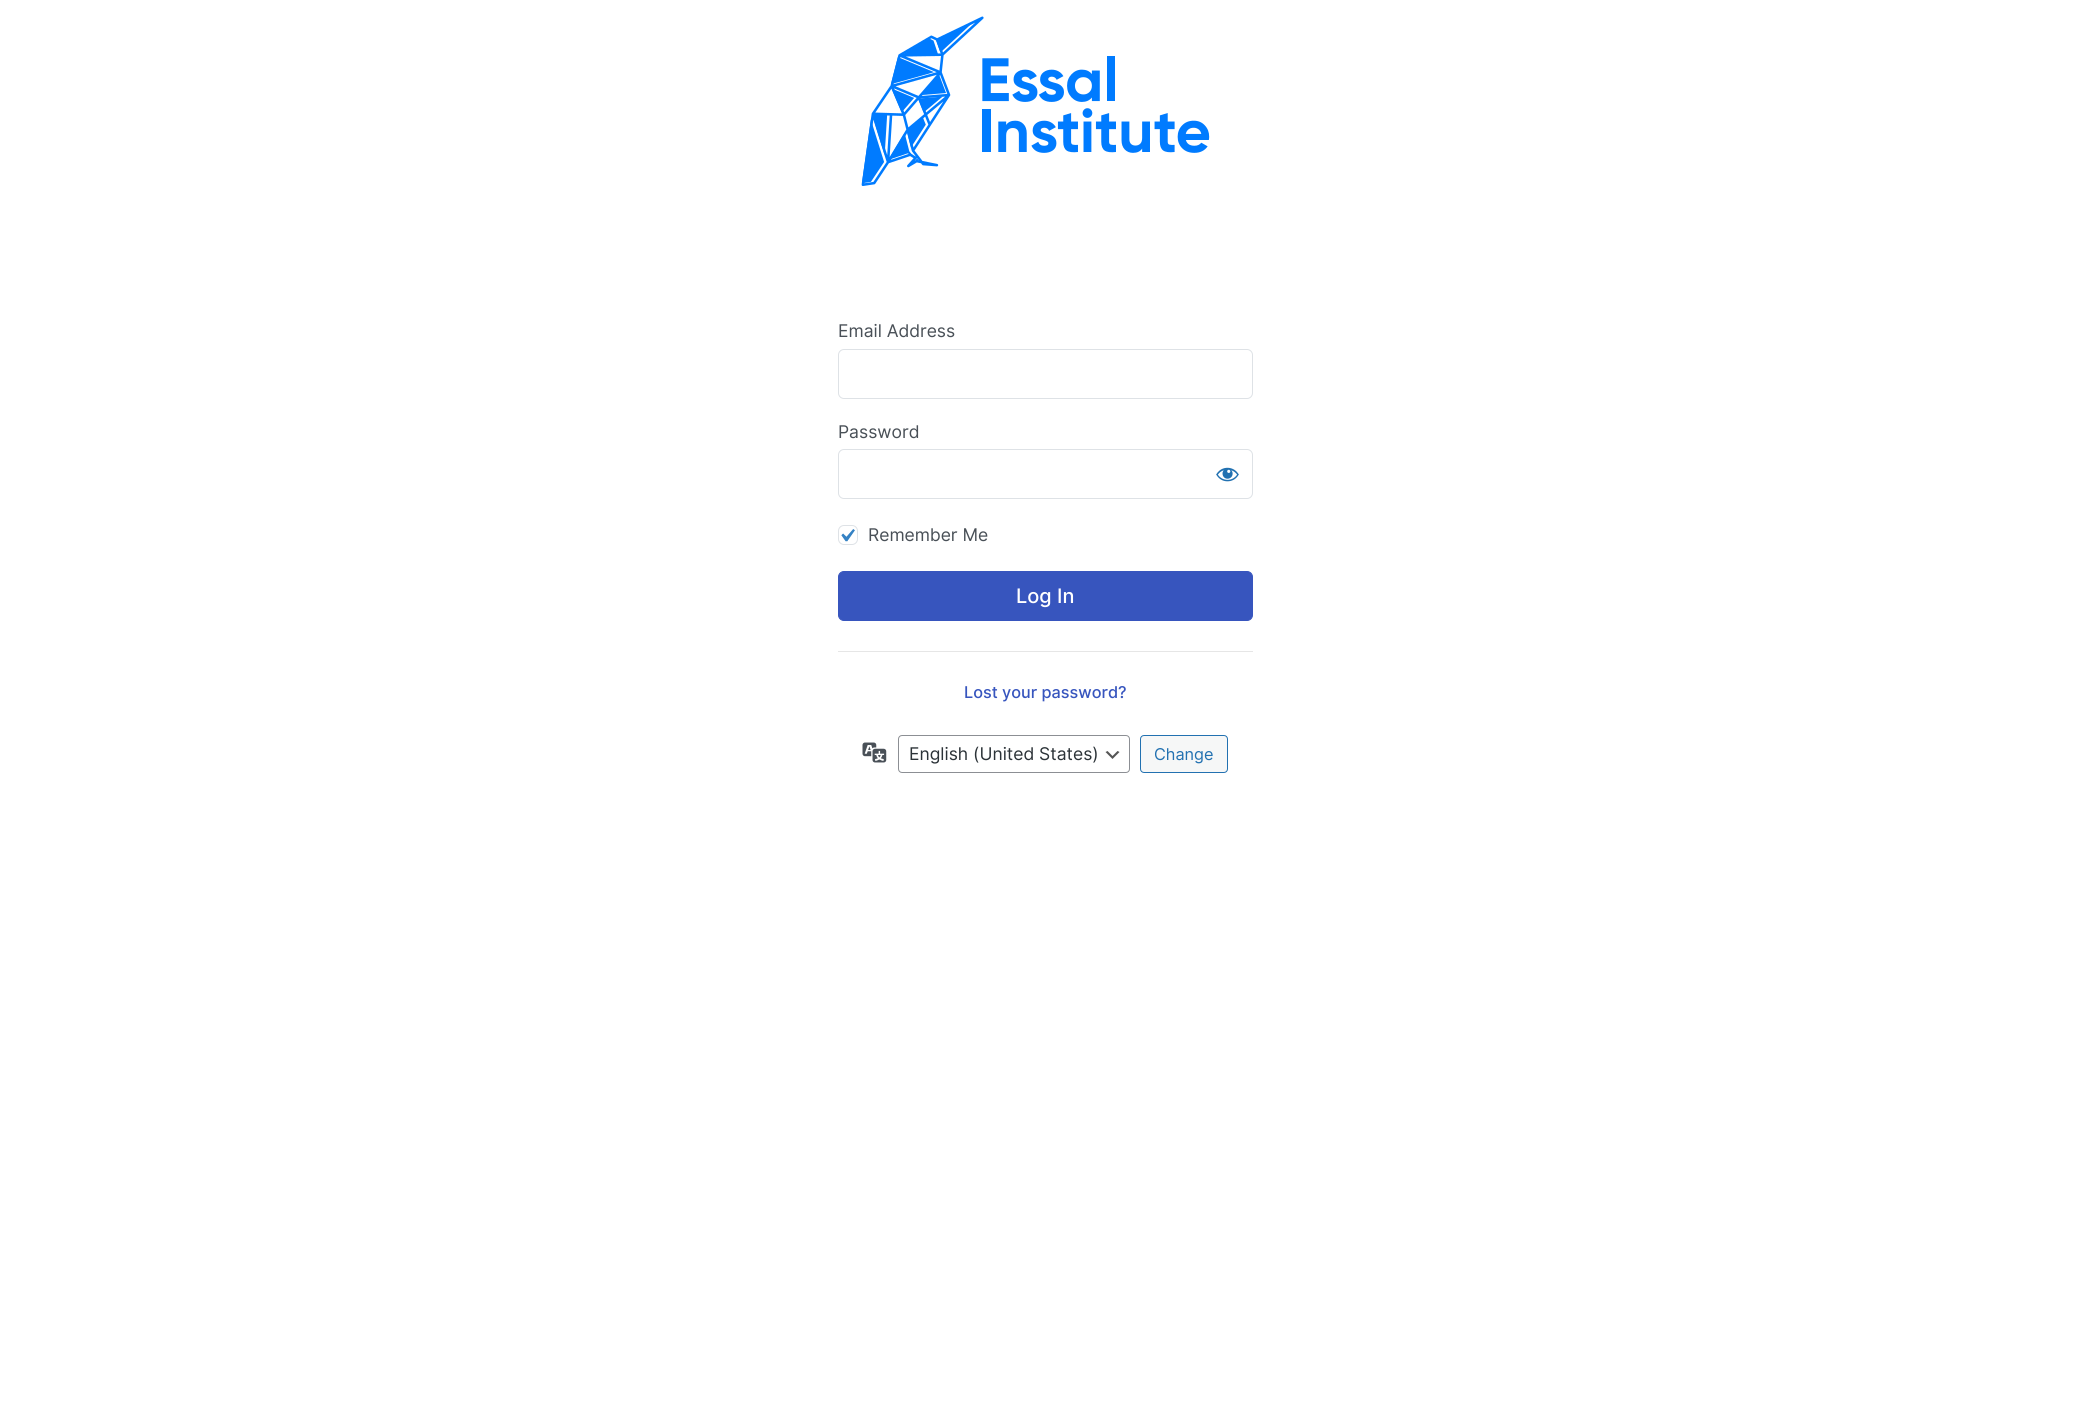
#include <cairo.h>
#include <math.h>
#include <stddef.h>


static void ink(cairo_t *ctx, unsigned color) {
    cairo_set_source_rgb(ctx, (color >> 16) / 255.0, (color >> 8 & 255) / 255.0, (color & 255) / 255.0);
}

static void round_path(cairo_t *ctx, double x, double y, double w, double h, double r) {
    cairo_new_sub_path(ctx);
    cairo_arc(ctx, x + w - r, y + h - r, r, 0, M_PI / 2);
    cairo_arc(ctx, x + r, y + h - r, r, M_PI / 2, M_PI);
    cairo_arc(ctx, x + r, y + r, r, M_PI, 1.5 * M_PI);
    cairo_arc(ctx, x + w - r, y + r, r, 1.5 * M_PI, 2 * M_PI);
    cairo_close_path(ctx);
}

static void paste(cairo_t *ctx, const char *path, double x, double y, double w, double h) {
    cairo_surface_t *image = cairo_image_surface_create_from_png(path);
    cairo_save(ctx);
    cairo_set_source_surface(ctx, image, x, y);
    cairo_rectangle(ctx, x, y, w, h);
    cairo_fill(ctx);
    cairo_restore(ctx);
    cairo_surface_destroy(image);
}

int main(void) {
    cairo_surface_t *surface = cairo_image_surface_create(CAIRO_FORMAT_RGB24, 2090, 1427);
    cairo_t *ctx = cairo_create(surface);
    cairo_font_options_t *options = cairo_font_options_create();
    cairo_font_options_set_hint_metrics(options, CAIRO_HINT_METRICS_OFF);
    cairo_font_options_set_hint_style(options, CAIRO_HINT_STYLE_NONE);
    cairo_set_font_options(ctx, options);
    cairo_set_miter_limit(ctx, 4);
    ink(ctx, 0xFFFFFF);
    cairo_paint(ctx);
    paste(ctx, "media/1.png", 861, 16, 349, 170);
    cairo_select_font_face(ctx, "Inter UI", CAIRO_FONT_SLANT_NORMAL, CAIRO_FONT_WEIGHT_NORMAL);
    cairo_set_font_size(ctx, 17.5);
    ink(ctx, 0x495057);
    cairo_move_to(ctx, 838, 337);
    cairo_show_text(ctx, "Email Address");
    round_path(ctx, 838.5, 349.5, 414, 49, 5.5);
    ink(ctx, 0xDEE2E6);
    cairo_set_line_width(ctx, 1);
    cairo_stroke(ctx);
    ink(ctx, 0x495057);
    cairo_move_to(ctx, 838, 438);
    cairo_show_text(ctx, "Password");
    round_path(ctx, 838.5, 449.5, 414, 49, 5.5);
    ink(ctx, 0xDEE2E6);
    cairo_stroke(ctx);
    paste(ctx, "media/2.png", 1216, 467, 23, 15);
    round_path(ctx, 838.5, 525.5, 19, 19, 5.5);
    cairo_stroke(ctx);
    paste(ctx, "media/3.png", 841, 529, 14, 13);
    ink(ctx, 0x495057);
    cairo_move_to(ctx, 868, 541);
    cairo_show_text(ctx, "Remember Me");
    ink(ctx, 0x3755BE);
    round_path(ctx, 838.5, 571.5, 414, 49, 5.5);
    cairo_fill_preserve(ctx);
    cairo_stroke(ctx);
    cairo_select_font_face(ctx, "Inter UI Medium", CAIRO_FONT_SLANT_NORMAL, CAIRO_FONT_WEIGHT_NORMAL);
    cairo_set_font_size(ctx, 20);
    ink(ctx, 0xFFFFFF);
    cairo_move_to(ctx, 1016, 603);
    cairo_show_text(ctx, "Log In");
    ink(ctx, 0xE6E6E6);
    cairo_rectangle(ctx, 838, 651, 415, 1);
    cairo_fill(ctx);
    cairo_set_font_size(ctx, 16.25);
    ink(ctx, 0x3755BE);
    cairo_move_to(ctx, 964, 698);
    cairo_show_text(ctx, "Lost your password?");
    paste(ctx, "media/4.png", 862, 742, 25, 21);
    paste(ctx, "media/5.png", 1105, 751, 15, 8);
    round_path(ctx, 898.5, 735.5, 231, 37, 3.5);
    ink(ctx, 0x8C8F94);
    cairo_stroke(ctx);
    cairo_select_font_face(ctx, "Inter UI", CAIRO_FONT_SLANT_NORMAL, CAIRO_FONT_WEIGHT_NORMAL);
    cairo_set_font_size(ctx, 17.5);
    ink(ctx, 0x2C3338);
    cairo_move_to(ctx, 909, 760);
    cairo_show_text(ctx, "English (United States)");
    ink(ctx, 0xF6F7F7);
    round_path(ctx, 1140.5, 735.5, 87, 37, 3.5);
    cairo_fill_preserve(ctx);
    ink(ctx, 0x2271B1);
    cairo_stroke(ctx);
    cairo_set_font_size(ctx, 16.25);
    cairo_move_to(ctx, 1154, 760);
    cairo_show_text(ctx, "Change");
    cairo_surface_write_to_png(surface, "image.png");
    cairo_font_options_destroy(options);
    cairo_destroy(ctx);
    cairo_surface_destroy(surface);
    return 0;
}
